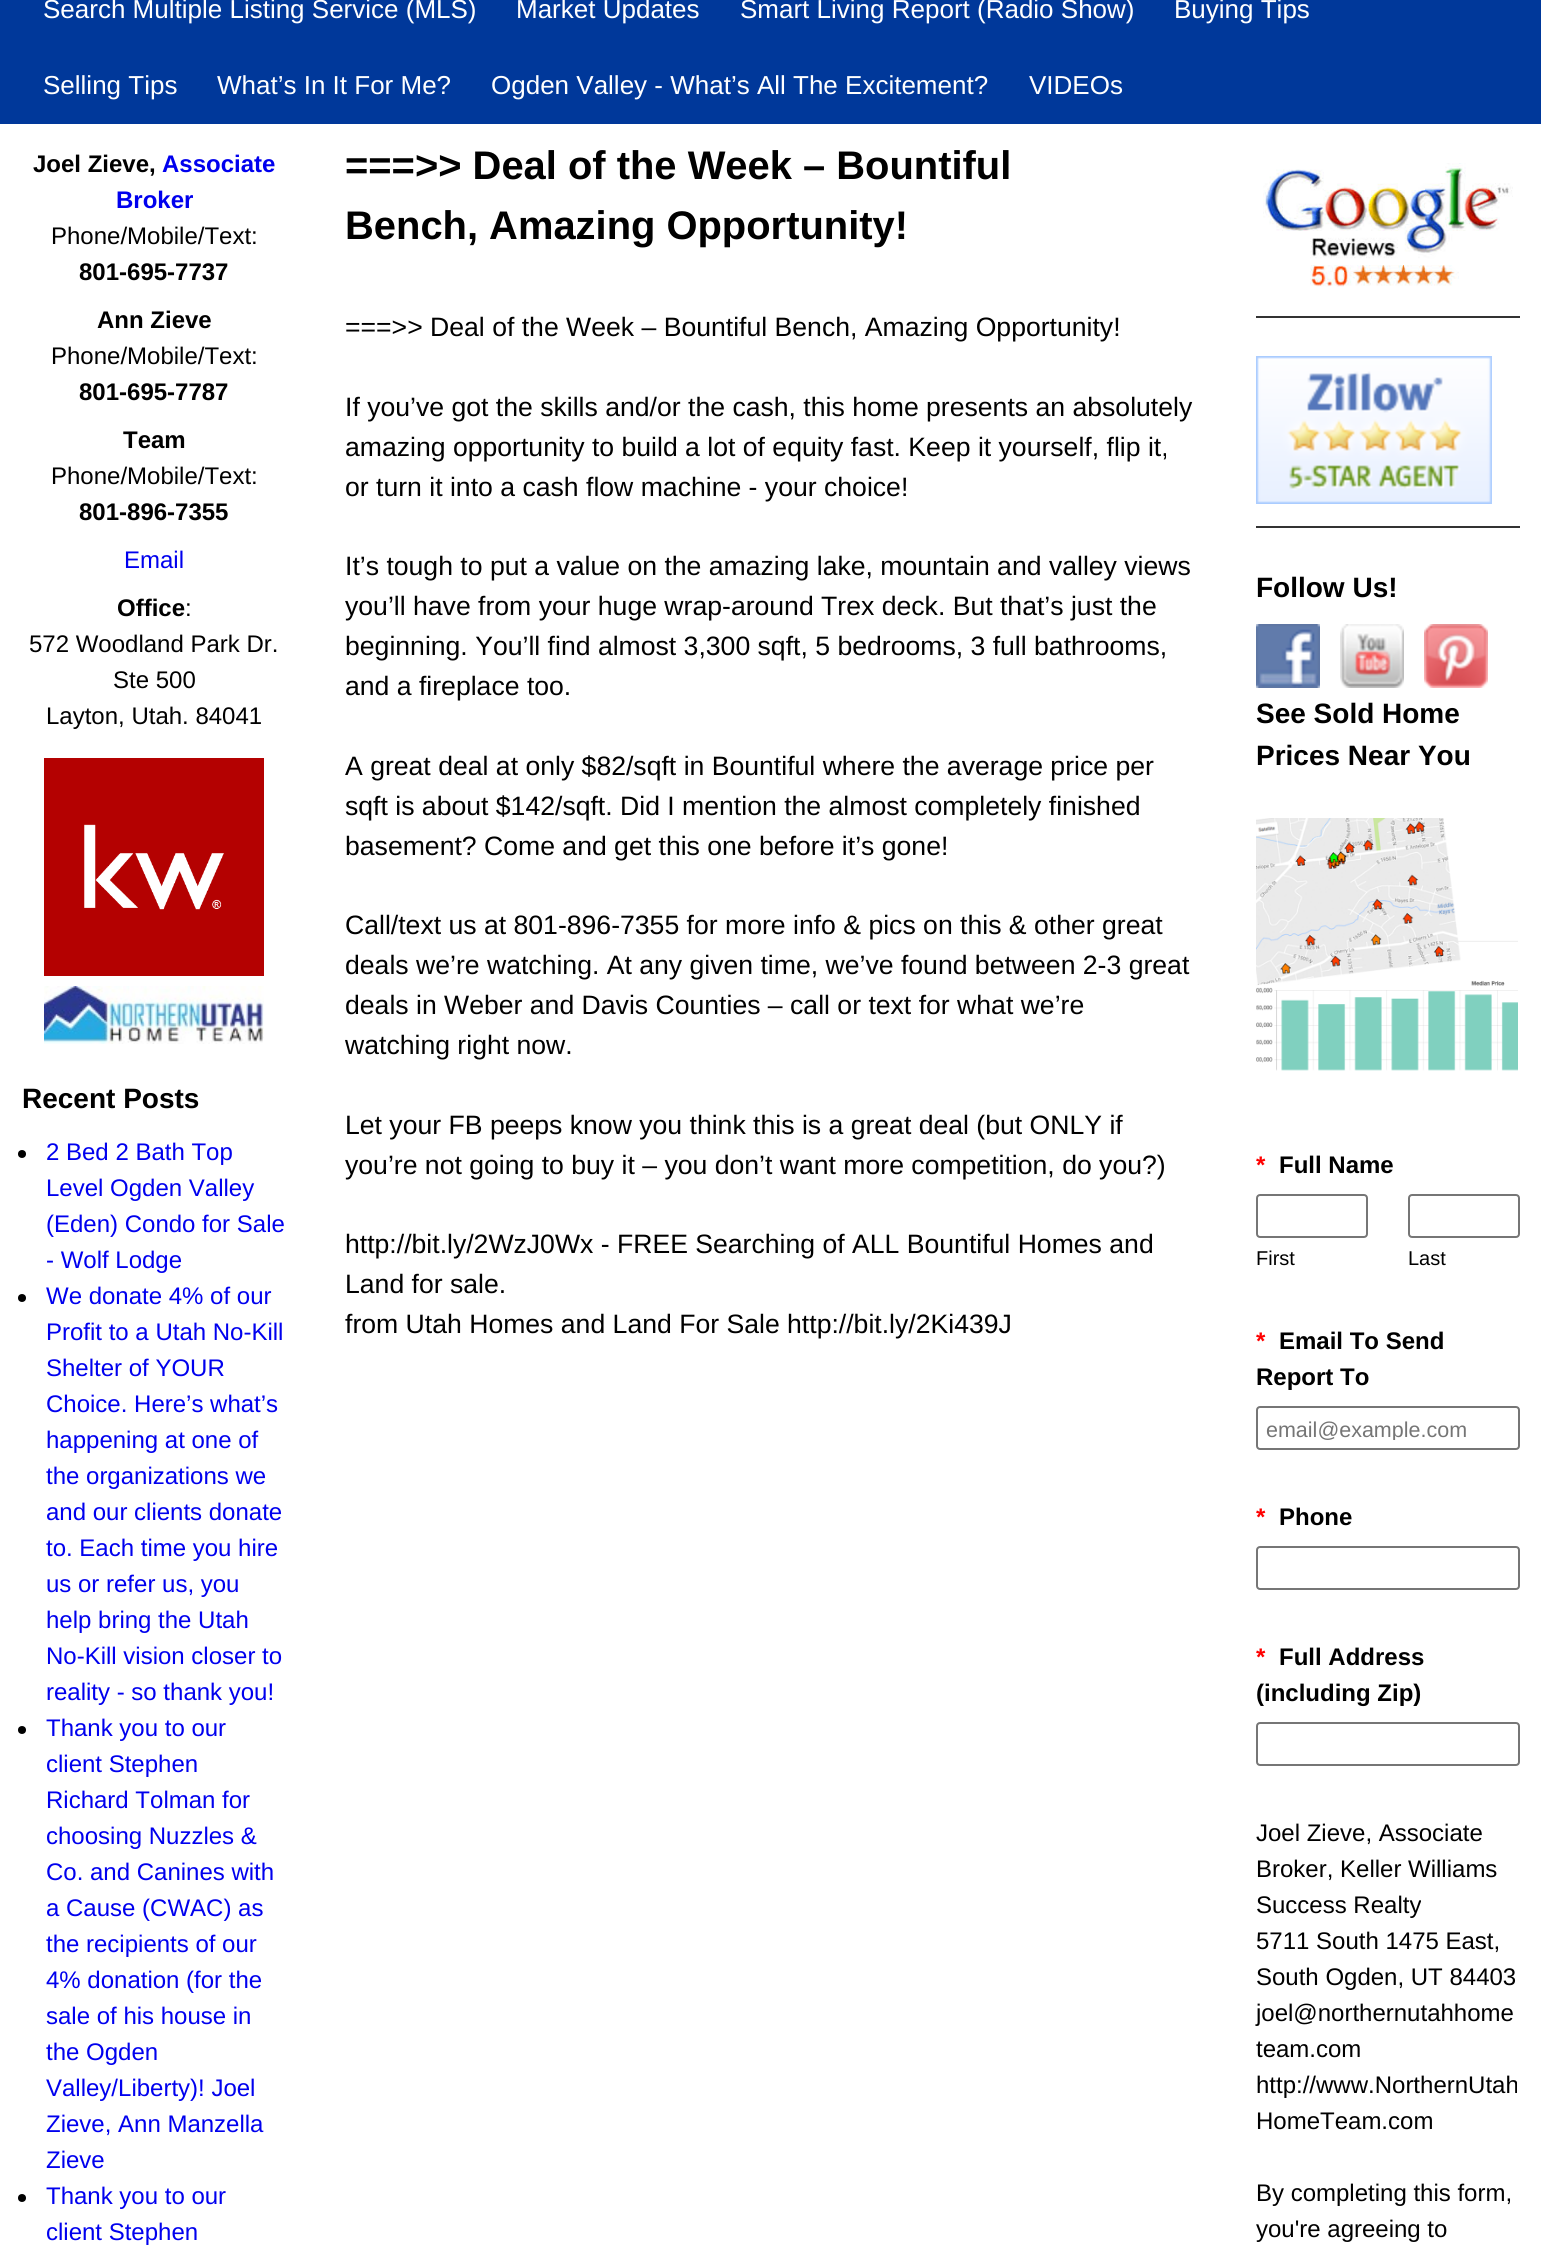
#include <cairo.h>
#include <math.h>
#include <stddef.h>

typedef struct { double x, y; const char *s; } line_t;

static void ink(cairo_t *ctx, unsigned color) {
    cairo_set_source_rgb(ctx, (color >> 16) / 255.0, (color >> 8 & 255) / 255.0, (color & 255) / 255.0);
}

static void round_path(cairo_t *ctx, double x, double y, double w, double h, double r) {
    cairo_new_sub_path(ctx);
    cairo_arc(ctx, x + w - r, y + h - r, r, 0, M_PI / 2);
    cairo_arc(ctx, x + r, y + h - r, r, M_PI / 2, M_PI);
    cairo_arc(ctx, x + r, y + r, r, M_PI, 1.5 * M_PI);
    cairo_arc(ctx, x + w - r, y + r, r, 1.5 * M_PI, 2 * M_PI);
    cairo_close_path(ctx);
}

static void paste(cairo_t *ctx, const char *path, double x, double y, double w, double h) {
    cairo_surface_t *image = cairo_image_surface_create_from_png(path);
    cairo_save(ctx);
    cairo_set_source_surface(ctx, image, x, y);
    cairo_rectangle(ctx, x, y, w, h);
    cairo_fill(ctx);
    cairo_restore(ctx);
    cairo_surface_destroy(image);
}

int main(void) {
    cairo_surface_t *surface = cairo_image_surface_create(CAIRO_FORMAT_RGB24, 1541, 2264);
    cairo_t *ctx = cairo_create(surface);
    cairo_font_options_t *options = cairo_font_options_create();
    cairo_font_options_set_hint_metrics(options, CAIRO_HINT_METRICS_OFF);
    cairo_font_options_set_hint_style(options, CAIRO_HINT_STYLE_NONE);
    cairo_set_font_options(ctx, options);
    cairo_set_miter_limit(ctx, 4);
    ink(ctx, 0xFFFFFF);
    cairo_paint(ctx);
    ink(ctx, 0x00389A);
    cairo_rectangle(ctx, 0, 0, 1541, 124);
    cairo_fill(ctx);
    cairo_select_font_face(ctx, "Liberation Sans", CAIRO_FONT_SLANT_NORMAL, CAIRO_FONT_WEIGHT_NORMAL);
    cairo_set_font_size(ctx, 26);
    ink(ctx, 0xFFFFFF);
    {
        static const line_t items[] = {
            {43, 18, "Search Multiple Listing Service (MLS)"},
            {516, 18, "Market Updates"},
            {740, 18, "Smart Living Report (Radio Show)"},
            {1174, 18, "Buying Tips"},
            {43, 94, "Selling Tips"},
            {217, 94, "What’s In It For Me?"},
            {491, 94, "Ogden Valley - What’s All The Excitement?"},
            {1029, 94, "VIDEOs"},
        };
        for (size_t i = 0; i < sizeof items / sizeof *items; i++) {
            cairo_move_to(ctx, items[i].x, items[i].y);
            cairo_show_text(ctx, items[i].s);
        }
    }
    cairo_select_font_face(ctx, "Liberation Sans", CAIRO_FONT_SLANT_NORMAL, CAIRO_FONT_WEIGHT_BOLD);
    cairo_set_font_size(ctx, 24);
    ink(ctx, 0x000000);
    cairo_move_to(ctx, 33, 172);
    cairo_show_text(ctx, "Joel Zieve,");
    ink(ctx, 0x0000EE);
    cairo_move_to(ctx, 162, 172);
    cairo_show_text(ctx, "Associate");
    cairo_move_to(ctx, 116, 208);
    cairo_show_text(ctx, "Broker");
    cairo_select_font_face(ctx, "Liberation Sans", CAIRO_FONT_SLANT_NORMAL, CAIRO_FONT_WEIGHT_NORMAL);
    ink(ctx, 0x000000);
    cairo_move_to(ctx, 51, 244);
    cairo_show_text(ctx, "Phone/Mobile/Text:");
    cairo_select_font_face(ctx, "Liberation Sans", CAIRO_FONT_SLANT_NORMAL, CAIRO_FONT_WEIGHT_BOLD);
    cairo_move_to(ctx, 79, 280);
    cairo_show_text(ctx, "801-695-7737");
    cairo_move_to(ctx, 97, 328);
    cairo_show_text(ctx, "Ann Zieve");
    cairo_select_font_face(ctx, "Liberation Sans", CAIRO_FONT_SLANT_NORMAL, CAIRO_FONT_WEIGHT_NORMAL);
    cairo_move_to(ctx, 51, 364);
    cairo_show_text(ctx, "Phone/Mobile/Text:");
    cairo_select_font_face(ctx, "Liberation Sans", CAIRO_FONT_SLANT_NORMAL, CAIRO_FONT_WEIGHT_BOLD);
    cairo_move_to(ctx, 79, 400);
    cairo_show_text(ctx, "801-695-7787");
    cairo_move_to(ctx, 123, 448);
    cairo_show_text(ctx, "Team");
    cairo_select_font_face(ctx, "Liberation Sans", CAIRO_FONT_SLANT_NORMAL, CAIRO_FONT_WEIGHT_NORMAL);
    cairo_move_to(ctx, 51, 484);
    cairo_show_text(ctx, "Phone/Mobile/Text:");
    cairo_select_font_face(ctx, "Liberation Sans", CAIRO_FONT_SLANT_NORMAL, CAIRO_FONT_WEIGHT_BOLD);
    cairo_move_to(ctx, 79, 520);
    cairo_show_text(ctx, "801-896-7355");
    cairo_select_font_face(ctx, "Liberation Sans", CAIRO_FONT_SLANT_NORMAL, CAIRO_FONT_WEIGHT_NORMAL);
    ink(ctx, 0x0000EE);
    cairo_move_to(ctx, 124, 568);
    cairo_show_text(ctx, "Email");
    cairo_select_font_face(ctx, "Liberation Sans", CAIRO_FONT_SLANT_NORMAL, CAIRO_FONT_WEIGHT_BOLD);
    ink(ctx, 0x000000);
    cairo_move_to(ctx, 117, 616);
    cairo_show_text(ctx, "Office");
    cairo_select_font_face(ctx, "Liberation Sans", CAIRO_FONT_SLANT_NORMAL, CAIRO_FONT_WEIGHT_NORMAL);
    {
        static const line_t items[] = {
            {185, 616, ":"},
            {29, 652, "572 Woodland Park Dr."},
            {113, 688, "Ste 500"},
            {46, 724, "Layton, Utah. 84041"},
        };
        for (size_t i = 0; i < sizeof items / sizeof *items; i++) {
            cairo_move_to(ctx, items[i].x, items[i].y);
            cairo_show_text(ctx, items[i].s);
        }
    }
    paste(ctx, "media/1.png", 44, 758, 220, 218);
    paste(ctx, "media/2.png", 44, 986, 220, 58);
    cairo_select_font_face(ctx, "Liberation Sans", CAIRO_FONT_SLANT_NORMAL, CAIRO_FONT_WEIGHT_BOLD);
    cairo_set_font_size(ctx, 28);
    cairo_move_to(ctx, 22, 1108);
    cairo_show_text(ctx, "Recent Posts");
    cairo_new_path(ctx);
    cairo_arc(ctx, 22, 1154, 4, 0, 2 * M_PI);
    cairo_fill(ctx);
    cairo_select_font_face(ctx, "Liberation Sans", CAIRO_FONT_SLANT_NORMAL, CAIRO_FONT_WEIGHT_NORMAL);
    cairo_set_font_size(ctx, 24);
    ink(ctx, 0x0000EE);
    {
        static const line_t items[] = {
            {46, 1160, "2 Bed 2 Bath Top"},
            {46, 1196, "Level Ogden Valley"},
            {46, 1232, "(Eden) Condo for Sale"},
            {46, 1268, "- Wolf Lodge"},
        };
        for (size_t i = 0; i < sizeof items / sizeof *items; i++) {
            cairo_move_to(ctx, items[i].x, items[i].y);
            cairo_show_text(ctx, items[i].s);
        }
    }
    ink(ctx, 0x000000);
    cairo_new_path(ctx);
    cairo_arc(ctx, 22, 1298, 4, 0, 2 * M_PI);
    cairo_fill(ctx);
    ink(ctx, 0x0000EE);
    {
        static const line_t items[] = {
            {46, 1304, "We donate 4% of our"},
            {46, 1340, "Profit to a Utah No-Kill"},
            {46, 1376, "Shelter of YOUR"},
            {46, 1412, "Choice. Here’s what’s"},
            {46, 1448, "happening at one of"},
            {46, 1484, "the organizations we"},
            {46, 1520, "and our clients donate"},
            {46, 1556, "to. Each time you hire"},
            {46, 1592, "us or refer us, you"},
            {46, 1628, "help bring the Utah"},
            {46, 1664, "No-Kill vision closer to"},
            {46, 1700, "reality - so thank you!"},
        };
        for (size_t i = 0; i < sizeof items / sizeof *items; i++) {
            cairo_move_to(ctx, items[i].x, items[i].y);
            cairo_show_text(ctx, items[i].s);
        }
    }
    ink(ctx, 0x000000);
    cairo_new_path(ctx);
    cairo_arc(ctx, 22, 1730, 4, 0, 2 * M_PI);
    cairo_fill(ctx);
    ink(ctx, 0x0000EE);
    {
        static const line_t items[] = {
            {46, 1736, "Thank you to our"},
            {46, 1772, "client Stephen"},
            {46, 1808, "Richard Tolman for"},
            {46, 1844, "choosing Nuzzles &"},
            {46, 1880, "Co. and Canines with"},
            {46, 1916, "a Cause (CWAC) as"},
            {46, 1952, "the recipients of our"},
            {46, 1988, "4% donation (for the"},
            {46, 2024, "sale of his house in"},
            {46, 2060, "the Ogden"},
            {46, 2096, "Valley/Liberty)! Joel"},
            {46, 2132, "Zieve, Ann Manzella"},
            {46, 2168, "Zieve"},
        };
        for (size_t i = 0; i < sizeof items / sizeof *items; i++) {
            cairo_move_to(ctx, items[i].x, items[i].y);
            cairo_show_text(ctx, items[i].s);
        }
    }
    ink(ctx, 0x000000);
    cairo_new_path(ctx);
    cairo_arc(ctx, 22, 2198, 4, 0, 2 * M_PI);
    cairo_fill(ctx);
    ink(ctx, 0x0000EE);
    cairo_move_to(ctx, 46, 2204);
    cairo_show_text(ctx, "Thank you to our");
    cairo_move_to(ctx, 46, 2240);
    cairo_show_text(ctx, "client Stephen");
    cairo_select_font_face(ctx, "Liberation Sans", CAIRO_FONT_SLANT_NORMAL, CAIRO_FONT_WEIGHT_BOLD);
    cairo_set_font_size(ctx, 39.9);
    ink(ctx, 0x000000);
    cairo_move_to(ctx, 345, 179);
    cairo_show_text(ctx, "===>> Deal of the Week – Bountiful");
    cairo_move_to(ctx, 345, 239);
    cairo_show_text(ctx, "Bench, Amazing Opportunity!");
    cairo_select_font_face(ctx, "Liberation Sans", CAIRO_FONT_SLANT_NORMAL, CAIRO_FONT_WEIGHT_NORMAL);
    cairo_set_font_size(ctx, 26.6);
    {
        static const line_t items[] = {
            {345, 336, "===>> Deal of the Week – Bountiful Bench, Amazing Opportunity!"},
            {345, 416, "If you’ve got the skills and/or the cash, this home presents an absolutely"},
            {345, 456, "amazing opportunity to build a lot of equity fast. Keep it yourself, flip it,"},
            {345, 496, "or turn it into a cash flow machine - your choice!"},
            {345, 575, "It’s tough to put a value on the amazing lake, mountain and valley views"},
            {345, 615, "you’ll have from your huge wrap-around Trex deck. But that’s just the"},
            {345, 655, "beginning. You’ll find almost 3,300 sqft, 5 bedrooms, 3 full bathrooms,"},
            {345, 695, "and a fireplace too."},
            {345, 775, "A great deal at only $82/sqft in Bountiful where the average price per"},
            {345, 815, "sqft is about $142/sqft. Did I mention the almost completely finished"},
            {345, 855, "basement? Come and get this one before it’s gone!"},
            {345, 934, "Call/text us at 801-896-7355 for more info & pics on this & other great"},
            {345, 974, "deals we’re watching. At any given time, we’ve found between 2-3 great"},
            {345, 1014, "deals in Weber and Davis Counties – call or text for what we’re"},
            {345, 1054, "watching right now."},
            {345, 1134, "Let your FB peeps know you think this is a great deal (but ONLY if"},
            {345, 1174, "you’re not going to buy it – you don’t want more competition, do you?)"},
            {345, 1253, "http://bit.ly/2WzJ0Wx - FREE Searching of ALL Bountiful Homes and"},
            {345, 1293, "Land for sale."},
            {345, 1333, "from Utah Homes and Land For Sale http://bit.ly/2Ki439J"},
        };
        for (size_t i = 0; i < sizeof items / sizeof *items; i++) {
            cairo_move_to(ctx, items[i].x, items[i].y);
            cairo_show_text(ctx, items[i].s);
        }
    }
    paste(ctx, "media/3.png", 1263, 163, 250, 124);
    ink(ctx, 0x333333);
    cairo_rectangle(ctx, 1256, 316, 264, 2);
    cairo_fill(ctx);
    paste(ctx, "media/4.png", 1256, 356, 236, 148);
    cairo_rectangle(ctx, 1256, 526, 264, 2);
    cairo_fill(ctx);
    cairo_select_font_face(ctx, "Liberation Sans", CAIRO_FONT_SLANT_NORMAL, CAIRO_FONT_WEIGHT_BOLD);
    cairo_set_font_size(ctx, 28);
    ink(ctx, 0x000000);
    cairo_move_to(ctx, 1256, 597);
    cairo_show_text(ctx, "Follow Us!");
    paste(ctx, "media/5.png", 1256, 624, 64, 64);
    paste(ctx, "media/6.png", 1340, 624, 64, 64);
    paste(ctx, "media/7.png", 1424, 624, 64, 64);
    cairo_move_to(ctx, 1256, 723);
    cairo_show_text(ctx, "See Sold Home");
    cairo_move_to(ctx, 1256, 765);
    cairo_show_text(ctx, "Prices Near You");
    paste(ctx, "media/8.png", 1256, 818, 262, 253);
    cairo_set_font_size(ctx, 24);
    ink(ctx, 0xFF0000);
    cairo_move_to(ctx, 1256, 1173);
    cairo_show_text(ctx, "*");
    ink(ctx, 0x000000);
    cairo_move_to(ctx, 1279, 1173);
    cairo_show_text(ctx, "Full Name");
    round_path(ctx, 1257, 1195, 110, 42, 3);
    ink(ctx, 0x767676);
    cairo_stroke(ctx);
    cairo_select_font_face(ctx, "Liberation Sans", CAIRO_FONT_SLANT_NORMAL, CAIRO_FONT_WEIGHT_NORMAL);
    cairo_set_font_size(ctx, 20);
    ink(ctx, 0x000000);
    cairo_move_to(ctx, 1256, 1265);
    cairo_show_text(ctx, "First");
    round_path(ctx, 1409, 1195, 110, 42, 3);
    ink(ctx, 0x767676);
    cairo_stroke(ctx);
    ink(ctx, 0x000000);
    cairo_move_to(ctx, 1408, 1265);
    cairo_show_text(ctx, "Last");
    cairo_select_font_face(ctx, "Liberation Sans", CAIRO_FONT_SLANT_NORMAL, CAIRO_FONT_WEIGHT_BOLD);
    cairo_set_font_size(ctx, 24);
    ink(ctx, 0xFF0000);
    cairo_move_to(ctx, 1256, 1349);
    cairo_show_text(ctx, "*");
    ink(ctx, 0x000000);
    cairo_move_to(ctx, 1279, 1349);
    cairo_show_text(ctx, "Email To Send");
    cairo_move_to(ctx, 1256, 1385);
    cairo_show_text(ctx, "Report To");
    round_path(ctx, 1257, 1407, 262, 42, 3);
    ink(ctx, 0x767676);
    cairo_stroke(ctx);
    cairo_save(ctx);
    cairo_rectangle(ctx, 1266, 1416, 244, 24);
    cairo_clip(ctx);
    cairo_select_font_face(ctx, "Liberation Sans", CAIRO_FONT_SLANT_NORMAL, CAIRO_FONT_WEIGHT_NORMAL);
    cairo_set_font_size(ctx, 21.5);
    ink(ctx, 0x757575);
    cairo_move_to(ctx, 1266, 1437);
    cairo_show_text(ctx, "email@example.com");
    cairo_restore(ctx);
    ink(ctx, 0xFF0000);
    cairo_move_to(ctx, 1256, 1525);
    cairo_show_text(ctx, "*");
    ink(ctx, 0x000000);
    cairo_move_to(ctx, 1279, 1525);
    cairo_show_text(ctx, "Phone");
    round_path(ctx, 1257, 1547, 262, 42, 3);
    ink(ctx, 0x767676);
    cairo_stroke(ctx);
    ink(ctx, 0xFF0000);
    cairo_move_to(ctx, 1256, 1665);
    cairo_show_text(ctx, "*");
    ink(ctx, 0x000000);
    cairo_move_to(ctx, 1279, 1665);
    cairo_show_text(ctx, "Full Address");
    cairo_move_to(ctx, 1256, 1701);
    cairo_show_text(ctx, "(including Zip)");
    round_path(ctx, 1257, 1723, 262, 42, 3);
    ink(ctx, 0x767676);
    cairo_stroke(ctx);
    cairo_select_font_face(ctx, "Liberation Sans", CAIRO_FONT_SLANT_NORMAL, CAIRO_FONT_WEIGHT_NORMAL);
    ink(ctx, 0x000000);
    {
        static const line_t items[] = {
            {1256, 1841, "Joel Zieve, Associate"},
            {1256, 1877, "Broker, Keller Williams"},
            {1256, 1913, "Success Realty"},
            {1256, 1949, "5711 South 1475 East,"},
            {1256, 1985, "South Ogden, UT 84403"},
            {1256, 2021, "joel@northernutahhome"},
            {1256, 2057, "team.com"},
            {1256, 2093, "http://www.NorthernUtah"},
            {1256, 2129, "HomeTeam.com"},
            {1256, 2201, "By completing this form,"},
            {1256, 2237, "you're agreeing to"},
        };
        for (size_t i = 0; i < sizeof items / sizeof *items; i++) {
            cairo_move_to(ctx, items[i].x, items[i].y);
            cairo_show_text(ctx, items[i].s);
        }
    }
    cairo_surface_write_to_png(surface, "image.png");
    cairo_font_options_destroy(options);
    cairo_destroy(ctx);
    cairo_surface_destroy(surface);
    return 0;
}
